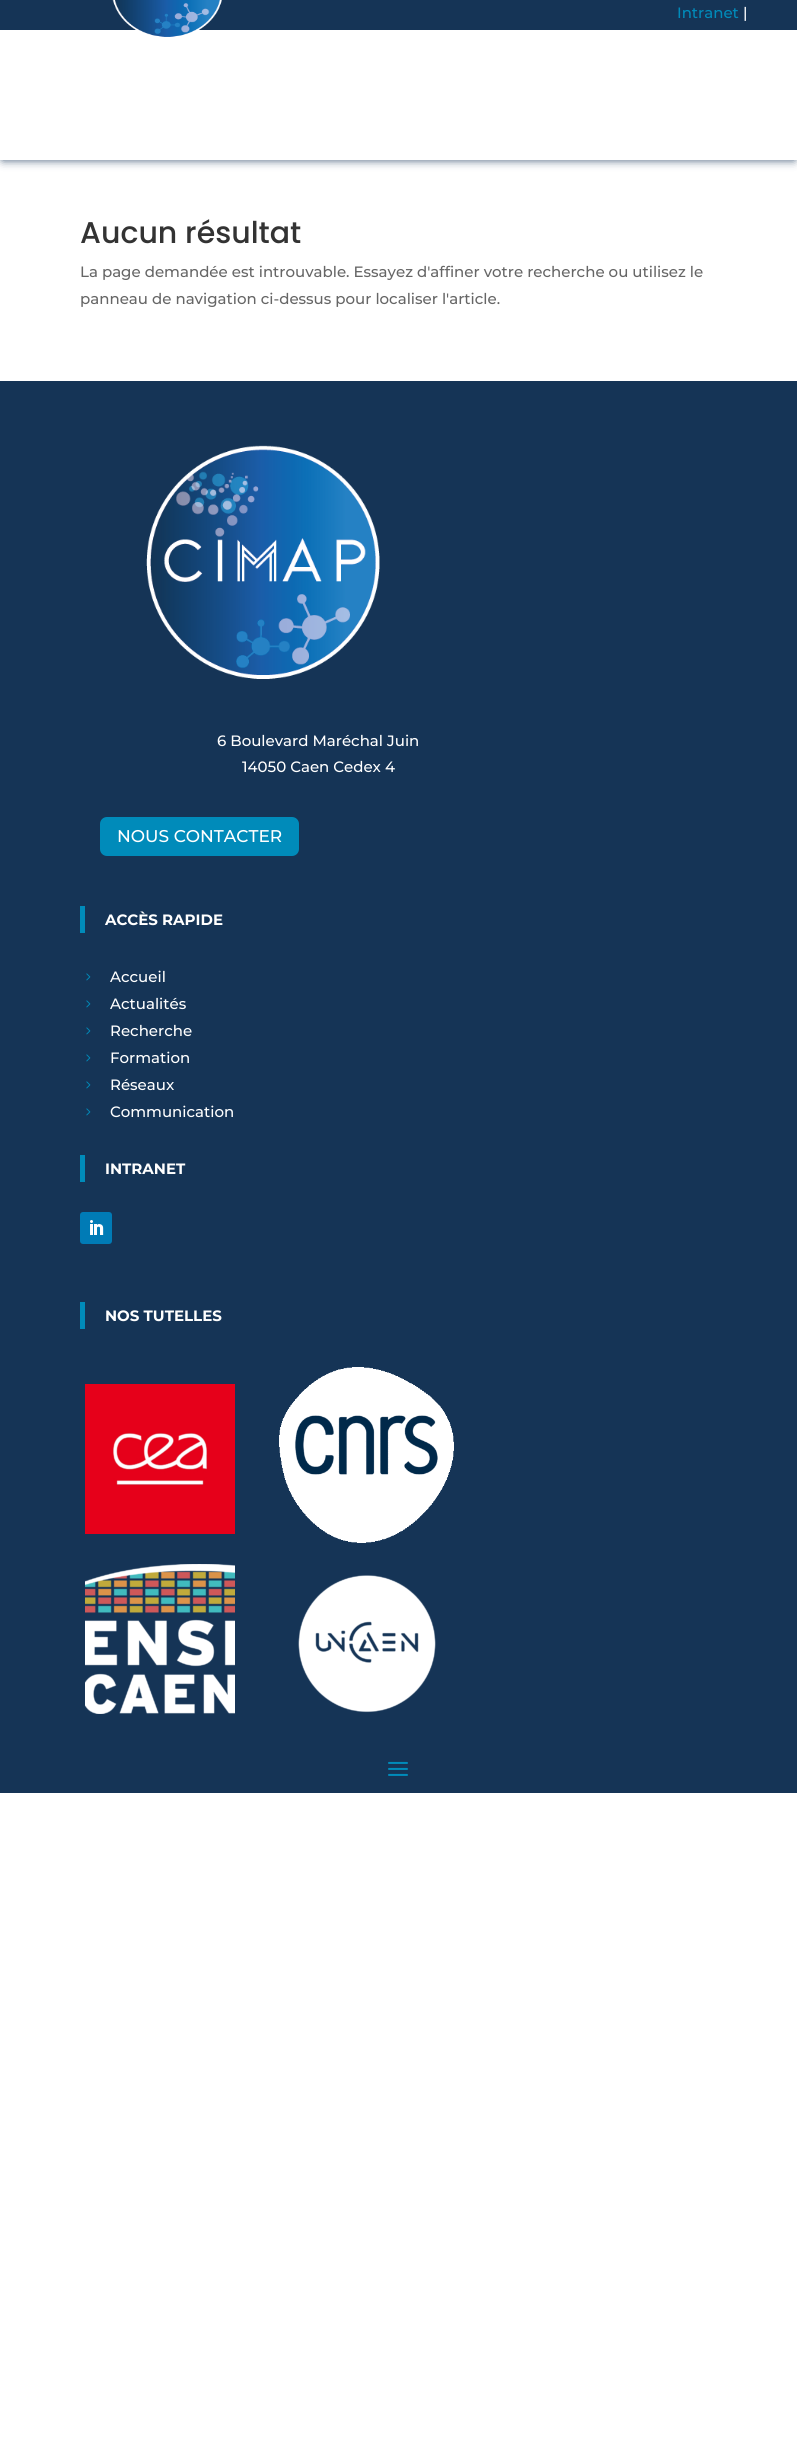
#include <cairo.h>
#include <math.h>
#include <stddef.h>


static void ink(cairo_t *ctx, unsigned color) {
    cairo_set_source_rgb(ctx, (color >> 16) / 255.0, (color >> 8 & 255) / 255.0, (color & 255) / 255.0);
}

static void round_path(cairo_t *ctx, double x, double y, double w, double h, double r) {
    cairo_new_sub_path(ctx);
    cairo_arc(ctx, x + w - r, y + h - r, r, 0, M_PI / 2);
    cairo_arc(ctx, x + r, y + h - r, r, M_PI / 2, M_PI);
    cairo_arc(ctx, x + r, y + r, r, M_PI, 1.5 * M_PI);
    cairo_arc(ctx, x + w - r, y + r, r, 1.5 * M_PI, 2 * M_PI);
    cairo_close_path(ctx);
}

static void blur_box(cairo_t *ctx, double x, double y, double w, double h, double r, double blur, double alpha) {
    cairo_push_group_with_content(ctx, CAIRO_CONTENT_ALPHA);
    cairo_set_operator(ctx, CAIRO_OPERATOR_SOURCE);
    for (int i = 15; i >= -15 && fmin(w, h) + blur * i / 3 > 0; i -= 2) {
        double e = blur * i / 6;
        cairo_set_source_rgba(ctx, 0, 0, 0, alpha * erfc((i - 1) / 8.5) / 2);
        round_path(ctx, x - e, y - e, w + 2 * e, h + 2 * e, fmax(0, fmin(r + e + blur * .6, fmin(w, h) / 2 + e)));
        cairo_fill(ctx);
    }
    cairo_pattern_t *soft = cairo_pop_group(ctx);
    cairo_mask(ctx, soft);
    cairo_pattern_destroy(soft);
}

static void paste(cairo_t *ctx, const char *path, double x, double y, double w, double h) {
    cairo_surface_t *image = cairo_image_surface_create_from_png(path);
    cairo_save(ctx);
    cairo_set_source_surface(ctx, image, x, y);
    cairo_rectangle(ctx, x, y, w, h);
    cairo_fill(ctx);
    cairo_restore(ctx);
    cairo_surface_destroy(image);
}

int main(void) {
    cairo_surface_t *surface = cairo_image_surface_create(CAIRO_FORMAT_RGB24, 797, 2438);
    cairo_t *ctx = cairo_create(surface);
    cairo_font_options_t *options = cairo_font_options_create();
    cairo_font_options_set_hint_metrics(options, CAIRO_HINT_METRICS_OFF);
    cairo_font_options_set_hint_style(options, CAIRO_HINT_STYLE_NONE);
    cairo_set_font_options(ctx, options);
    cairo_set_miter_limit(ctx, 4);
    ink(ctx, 0xFFFFFF);
    cairo_paint(ctx);
    ink(ctx, 0x153456);
    cairo_rectangle(ctx, 0, 0, 797, 30);
    cairo_fill(ctx);
    ink(ctx, 0x153456);
    blur_box(ctx, 3, 35, 791, 124, 0, 5, 1);
    ink(ctx, 0xFFFFFF);
    cairo_rectangle(ctx, 0, 30, 797, 130);
    cairo_fill(ctx);
    paste(ctx, "media/1.png", 112, 0, 110, 37);
    cairo_select_font_face(ctx, "Montserrat Medium", CAIRO_FONT_SLANT_NORMAL, CAIRO_FONT_WEIGHT_NORMAL);
    cairo_set_font_size(ctx, 15);
    ink(ctx, 0x008BBA);
    cairo_move_to(ctx, 677, 18);
    cairo_show_text(ctx, "Intranet");
    ink(ctx, 0xFFFFFF);
    cairo_move_to(ctx, 743, 18);
    cairo_show_text(ctx, "|");
    cairo_select_font_face(ctx, "Poppins Medium", CAIRO_FONT_SLANT_NORMAL, CAIRO_FONT_WEIGHT_NORMAL);
    cairo_set_font_size(ctx, 30);
    ink(ctx, 0x333333);
    cairo_move_to(ctx, 80, 243);
    cairo_show_text(ctx, "Aucun résultat");
    cairo_select_font_face(ctx, "Montserrat Medium", CAIRO_FONT_SLANT_NORMAL, CAIRO_FONT_WEIGHT_NORMAL);
    cairo_set_font_size(ctx, 15);
    ink(ctx, 0x666666);
    cairo_move_to(ctx, 80, 277);
    cairo_show_text(ctx, "La page demandée est introuvable. Essayez d'affiner votre recherche ou utilisez le");
    cairo_move_to(ctx, 80, 304);
    cairo_show_text(ctx, "panneau de navigation ci-dessus pour localiser l'article.");
    ink(ctx, 0x153456);
    cairo_rectangle(ctx, 0, 381, 797, 1412);
    cairo_fill(ctx);
    paste(ctx, "media/2.png", 146, 445, 234, 234);
    ink(ctx, 0xFFFFFF);
    cairo_move_to(ctx, 217, 746);
    cairo_show_text(ctx, "6 Boulevard Maréchal Juin");
    cairo_move_to(ctx, 242, 772);
    cairo_show_text(ctx, "14050 Caen Cedex 4");
    ink(ctx, 0x008BBA);
    round_path(ctx, 100, 817, 199, 39, 7);
    cairo_fill(ctx);
    cairo_set_font_size(ctx, 17);
    ink(ctx, 0xFFFFFF);
    cairo_move_to(ctx, 117, 842);
    cairo_show_text(ctx, "NOUS CONTACTER");
    ink(ctx, 0x008BBA);
    cairo_rectangle(ctx, 80, 906, 5, 27);
    cairo_fill(ctx);
    cairo_select_font_face(ctx, "Montserrat", CAIRO_FONT_SLANT_NORMAL, CAIRO_FONT_WEIGHT_BOLD);
    cairo_set_font_size(ctx, 15);
    ink(ctx, 0xFFFFFF);
    cairo_move_to(ctx, 105, 925);
    cairo_show_text(ctx, "ACCÈS RAPIDE");
    paste(ctx, "media/3.png", 86, 973, 5, 8);
    cairo_select_font_face(ctx, "Montserrat Medium", CAIRO_FONT_SLANT_NORMAL, CAIRO_FONT_WEIGHT_NORMAL);
    cairo_move_to(ctx, 110, 982);
    cairo_show_text(ctx, "Accueil");
    paste(ctx, "media/3.png", 86, 1000, 5, 8);
    cairo_move_to(ctx, 110, 1009);
    cairo_show_text(ctx, "Actualités");
    paste(ctx, "media/3.png", 86, 1027, 5, 8);
    cairo_move_to(ctx, 110, 1036);
    cairo_show_text(ctx, "Recherche");
    paste(ctx, "media/3.png", 86, 1054, 5, 8);
    cairo_move_to(ctx, 110, 1063);
    cairo_show_text(ctx, "Formation");
    paste(ctx, "media/3.png", 86, 1081, 5, 8);
    cairo_move_to(ctx, 110, 1090);
    cairo_show_text(ctx, "Réseaux");
    paste(ctx, "media/3.png", 86, 1108, 5, 8);
    cairo_move_to(ctx, 110, 1117);
    cairo_show_text(ctx, "Communication");
    ink(ctx, 0x008BBA);
    cairo_rectangle(ctx, 80, 1155, 5, 27);
    cairo_fill(ctx);
    cairo_select_font_face(ctx, "Montserrat", CAIRO_FONT_SLANT_NORMAL, CAIRO_FONT_WEIGHT_BOLD);
    ink(ctx, 0xFFFFFF);
    cairo_move_to(ctx, 105, 1174);
    cairo_show_text(ctx, "INTRANET");
    ink(ctx, 0x007BB6);
    round_path(ctx, 80, 1212, 32, 32, 3);
    cairo_fill(ctx);
    paste(ctx, "media/4.png", 90, 1220, 14, 15);
    ink(ctx, 0x008BBA);
    cairo_rectangle(ctx, 80, 1302, 5, 27);
    cairo_fill(ctx);
    ink(ctx, 0xFFFFFF);
    cairo_move_to(ctx, 105, 1321);
    cairo_show_text(ctx, "NOS TUTELLES");
    paste(ctx, "media/5.png", 85, 1384, 150, 150);
    paste(ctx, "media/6.png", 279, 1367, 175, 176);
    paste(ctx, "media/7.png", 85, 1564, 150, 150);
    paste(ctx, "media/8.png", 298, 1575, 138, 138);
    paste(ctx, "media/9.png", 388, 1761, 20, 15);
    cairo_surface_write_to_png(surface, "image.png");
    cairo_font_options_destroy(options);
    cairo_destroy(ctx);
    cairo_surface_destroy(surface);
    return 0;
}
